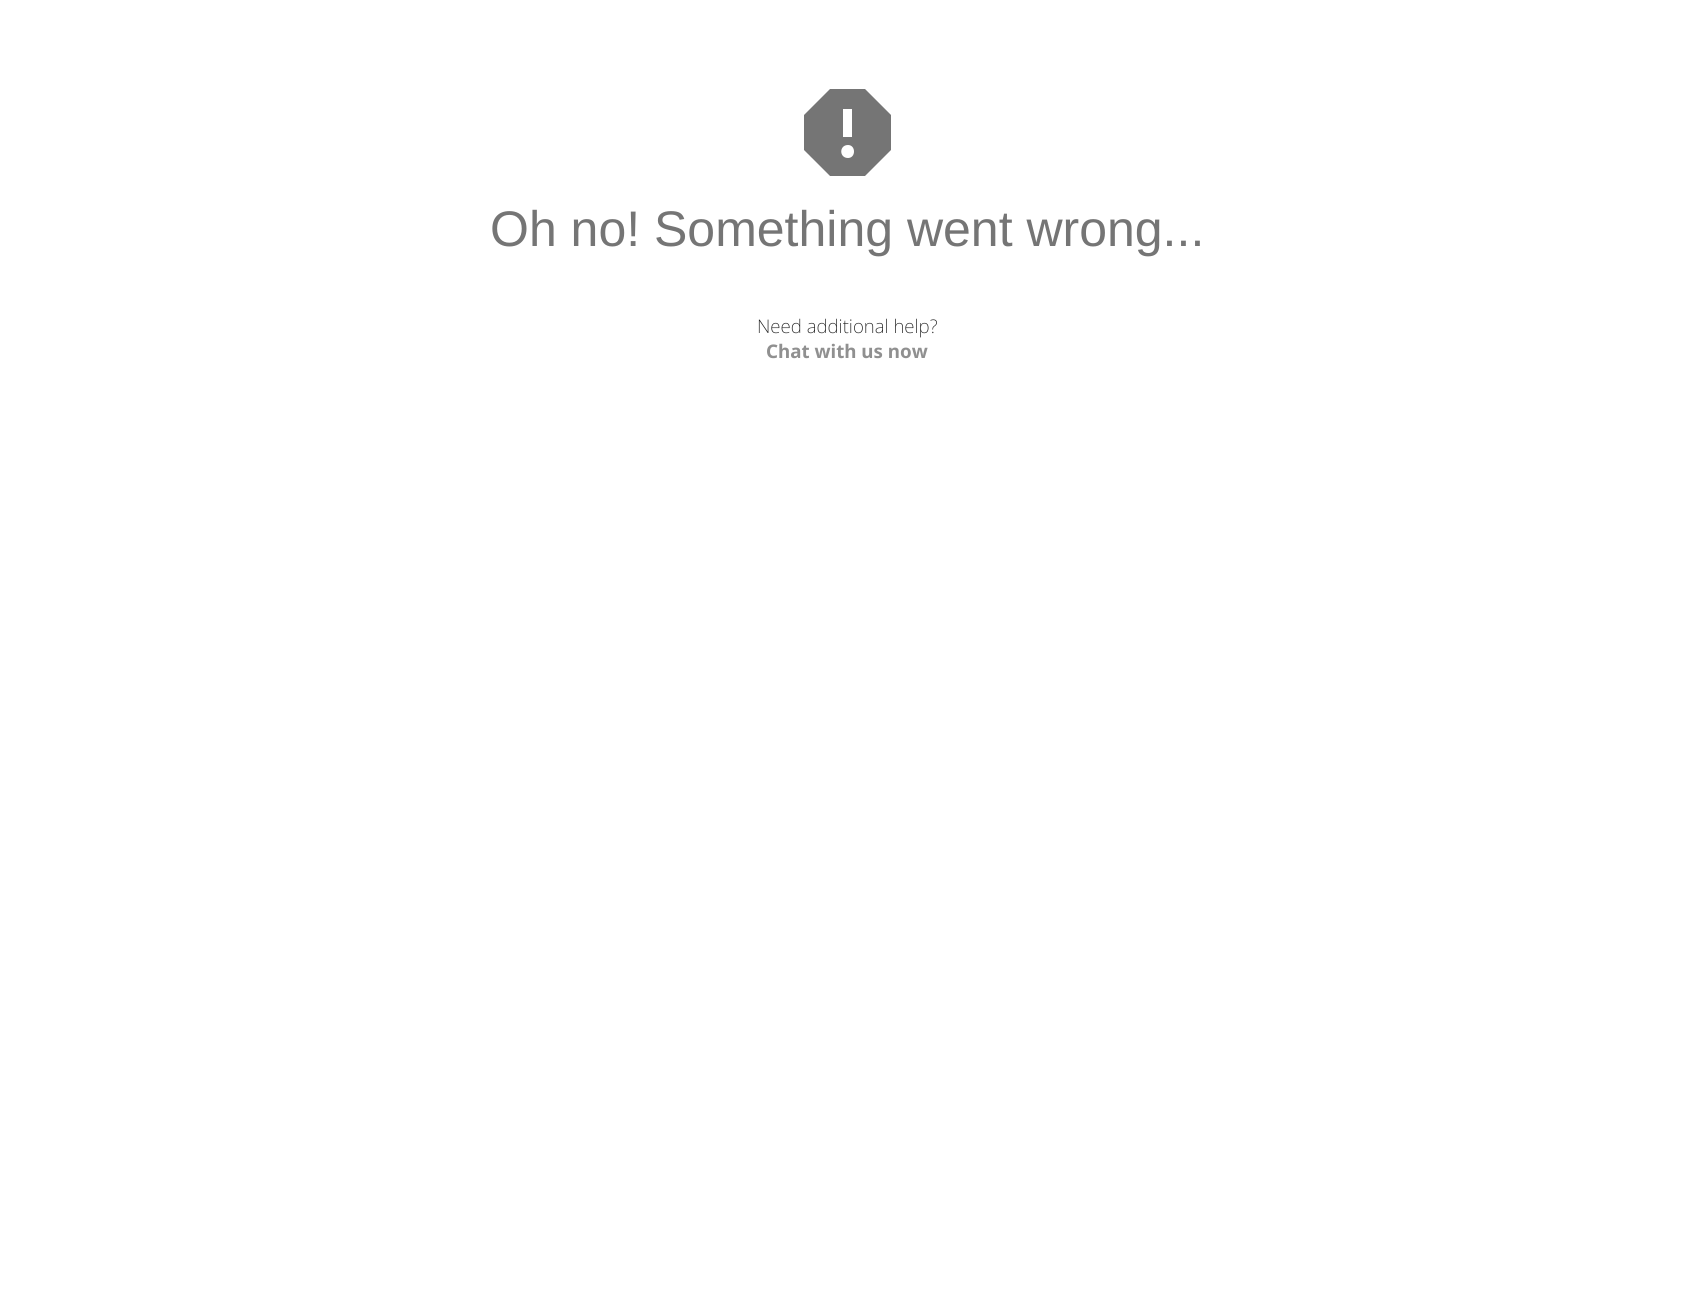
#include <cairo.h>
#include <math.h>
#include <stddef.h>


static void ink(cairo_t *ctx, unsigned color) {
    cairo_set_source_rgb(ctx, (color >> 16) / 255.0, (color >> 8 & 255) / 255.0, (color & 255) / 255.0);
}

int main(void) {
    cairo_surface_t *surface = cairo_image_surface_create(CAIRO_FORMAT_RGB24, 1693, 1296);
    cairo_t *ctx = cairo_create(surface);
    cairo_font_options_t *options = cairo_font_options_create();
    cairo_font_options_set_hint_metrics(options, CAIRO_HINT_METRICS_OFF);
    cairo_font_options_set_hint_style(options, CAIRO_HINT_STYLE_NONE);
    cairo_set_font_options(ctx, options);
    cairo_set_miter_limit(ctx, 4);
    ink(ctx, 0xFFFFFF);
    cairo_paint(ctx);
    ink(ctx, 0x757575);
    cairo_new_path(ctx);
    cairo_move_to(ctx, 865, 89);
    cairo_line_to(ctx, 830, 89);
    cairo_line_to(ctx, 804, 115);
    cairo_line_to(ctx, 804, 150);
    cairo_line_to(ctx, 830, 176);
    cairo_line_to(ctx, 865, 176);
    cairo_line_to(ctx, 891, 150);
    cairo_line_to(ctx, 891, 115);
    cairo_close_path(ctx);
    cairo_move_to(ctx, 848, 158);
    cairo_curve_to(ctx, 839, 158, 839, 145, 848, 145);
    cairo_curve_to(ctx, 856, 145, 856, 158, 848, 158);
    cairo_close_path(ctx);
    cairo_move_to(ctx, 852, 137);
    cairo_line_to(ctx, 843, 137);
    cairo_line_to(ctx, 843, 109);
    cairo_line_to(ctx, 852, 109);
    cairo_close_path(ctx);
    cairo_fill(ctx);
    cairo_select_font_face(ctx, "Liberation Sans", CAIRO_FONT_SLANT_NORMAL, CAIRO_FONT_WEIGHT_NORMAL);
    cairo_set_font_size(ctx, 50);
    cairo_move_to(ctx, 490, 246);
    cairo_show_text(ctx, "Oh no! Something went wrong...");
    cairo_select_font_face(ctx, "Noto Sans ExtraLight", CAIRO_FONT_SLANT_NORMAL, CAIRO_FONT_WEIGHT_NORMAL);
    cairo_set_font_size(ctx, 18.75);
    ink(ctx, 0x212121);
    cairo_move_to(ctx, 757, 333);
    cairo_show_text(ctx, "Need additional help?");
    cairo_select_font_face(ctx, "Noto Sans", CAIRO_FONT_SLANT_NORMAL, CAIRO_FONT_WEIGHT_BOLD);
    ink(ctx, 0x909090);
    cairo_move_to(ctx, 766, 358);
    cairo_show_text(ctx, "Chat with us now");
    cairo_surface_write_to_png(surface, "image.png");
    cairo_font_options_destroy(options);
    cairo_destroy(ctx);
    cairo_surface_destroy(surface);
    return 0;
}
